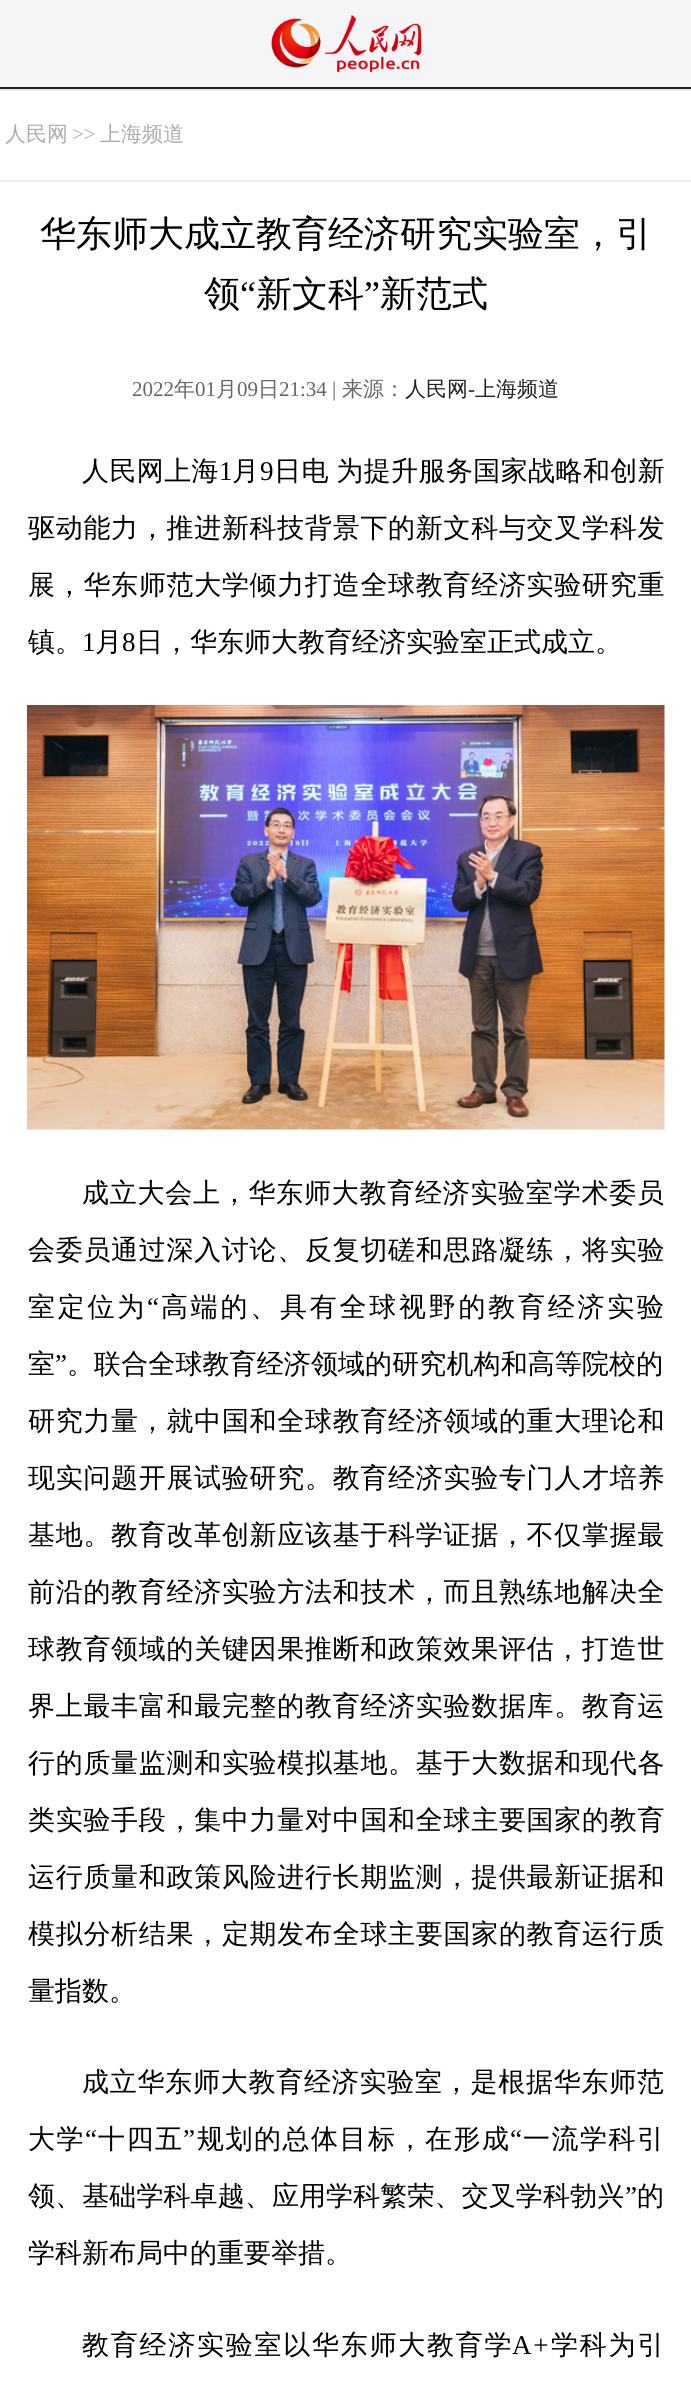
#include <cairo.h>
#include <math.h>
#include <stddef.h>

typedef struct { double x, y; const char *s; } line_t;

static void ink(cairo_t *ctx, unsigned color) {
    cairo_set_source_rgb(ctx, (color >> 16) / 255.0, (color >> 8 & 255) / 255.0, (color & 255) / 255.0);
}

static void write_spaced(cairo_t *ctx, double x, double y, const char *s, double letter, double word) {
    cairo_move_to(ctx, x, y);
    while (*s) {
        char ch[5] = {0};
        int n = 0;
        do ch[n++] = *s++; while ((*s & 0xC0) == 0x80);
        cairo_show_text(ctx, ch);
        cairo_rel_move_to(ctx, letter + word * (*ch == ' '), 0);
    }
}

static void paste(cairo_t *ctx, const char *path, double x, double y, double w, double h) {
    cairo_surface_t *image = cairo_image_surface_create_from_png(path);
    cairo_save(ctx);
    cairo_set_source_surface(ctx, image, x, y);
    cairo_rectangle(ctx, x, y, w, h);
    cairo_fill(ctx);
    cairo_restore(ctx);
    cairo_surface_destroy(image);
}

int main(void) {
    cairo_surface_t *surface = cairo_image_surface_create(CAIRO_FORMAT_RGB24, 691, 2401);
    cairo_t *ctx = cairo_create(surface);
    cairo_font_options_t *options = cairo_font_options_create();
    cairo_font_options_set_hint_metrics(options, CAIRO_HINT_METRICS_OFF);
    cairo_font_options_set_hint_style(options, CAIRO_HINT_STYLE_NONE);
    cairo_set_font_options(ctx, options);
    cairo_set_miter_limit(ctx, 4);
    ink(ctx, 0xFFFFFF);
    cairo_paint(ctx);
    ink(ctx, 0xF5F5F7);
    cairo_rectangle(ctx, 0, 0, 691, 87);
    cairo_fill(ctx);
    ink(ctx, 0x212121);
    cairo_rectangle(ctx, 0, 87, 691, 2);
    cairo_fill(ctx);
    paste(ctx, "media/1.png", 271, 15, 151, 57);
    ink(ctx, 0xE9E9E9);
    cairo_rectangle(ctx, 0, 89, 691, 2);
    cairo_fill(ctx);
    ink(ctx, 0xECECEC);
    cairo_rectangle(ctx, 0, 180, 691, 2);
    cairo_fill(ctx);
    cairo_select_font_face(ctx, "WenQuanYi Zen Hei Medium", CAIRO_FONT_SLANT_NORMAL, CAIRO_FONT_WEIGHT_NORMAL);
    cairo_set_font_size(ctx, 21);
    ink(ctx, 0xADADAD);
    cairo_move_to(ctx, 5, 141);
    cairo_show_text(ctx, "人民网");
    cairo_select_font_face(ctx, "Liberation Serif", CAIRO_FONT_SLANT_NORMAL, CAIRO_FONT_WEIGHT_NORMAL);
    cairo_move_to(ctx, 72, 141);
    cairo_show_text(ctx, ">>");
    cairo_select_font_face(ctx, "WenQuanYi Zen Hei Medium", CAIRO_FONT_SLANT_NORMAL, CAIRO_FONT_WEIGHT_NORMAL);
    cairo_move_to(ctx, 100, 141);
    cairo_show_text(ctx, "上海频道");
    cairo_set_font_size(ctx, 36);
    ink(ctx, 0x000000);
    cairo_move_to(ctx, 40, 246);
    cairo_show_text(ctx, "华东师大成立教育经济研究实验室，引");
    cairo_move_to(ctx, 204, 306);
    cairo_show_text(ctx, "领");
    cairo_select_font_face(ctx, "Liberation Serif", CAIRO_FONT_SLANT_NORMAL, CAIRO_FONT_WEIGHT_NORMAL);
    cairo_move_to(ctx, 240, 306);
    cairo_show_text(ctx, "“");
    cairo_select_font_face(ctx, "WenQuanYi Zen Hei Medium", CAIRO_FONT_SLANT_NORMAL, CAIRO_FONT_WEIGHT_NORMAL);
    cairo_move_to(ctx, 256, 306);
    cairo_show_text(ctx, "新文科");
    cairo_select_font_face(ctx, "Liberation Serif", CAIRO_FONT_SLANT_NORMAL, CAIRO_FONT_WEIGHT_NORMAL);
    cairo_move_to(ctx, 364, 306);
    cairo_show_text(ctx, "”");
    cairo_select_font_face(ctx, "WenQuanYi Zen Hei Medium", CAIRO_FONT_SLANT_NORMAL, CAIRO_FONT_WEIGHT_NORMAL);
    cairo_move_to(ctx, 380, 306);
    cairo_show_text(ctx, "新范式");
    cairo_select_font_face(ctx, "Liberation Serif", CAIRO_FONT_SLANT_NORMAL, CAIRO_FONT_WEIGHT_NORMAL);
    cairo_set_font_size(ctx, 21);
    ink(ctx, 0x666666);
    cairo_move_to(ctx, 132, 396);
    cairo_show_text(ctx, "2022");
    cairo_select_font_face(ctx, "WenQuanYi Zen Hei Medium", CAIRO_FONT_SLANT_NORMAL, CAIRO_FONT_WEIGHT_NORMAL);
    cairo_move_to(ctx, 174, 396);
    cairo_show_text(ctx, "年");
    cairo_select_font_face(ctx, "Liberation Serif", CAIRO_FONT_SLANT_NORMAL, CAIRO_FONT_WEIGHT_NORMAL);
    cairo_move_to(ctx, 195, 396);
    cairo_show_text(ctx, "01");
    cairo_select_font_face(ctx, "WenQuanYi Zen Hei Medium", CAIRO_FONT_SLANT_NORMAL, CAIRO_FONT_WEIGHT_NORMAL);
    cairo_move_to(ctx, 216, 396);
    cairo_show_text(ctx, "月");
    cairo_select_font_face(ctx, "Liberation Serif", CAIRO_FONT_SLANT_NORMAL, CAIRO_FONT_WEIGHT_NORMAL);
    cairo_move_to(ctx, 237, 396);
    cairo_show_text(ctx, "09");
    cairo_select_font_face(ctx, "WenQuanYi Zen Hei Medium", CAIRO_FONT_SLANT_NORMAL, CAIRO_FONT_WEIGHT_NORMAL);
    cairo_move_to(ctx, 258, 396);
    cairo_show_text(ctx, "日");
    cairo_select_font_face(ctx, "Liberation Serif", CAIRO_FONT_SLANT_NORMAL, CAIRO_FONT_WEIGHT_NORMAL);
    cairo_move_to(ctx, 279, 396);
    cairo_show_text(ctx, "21:34 |");
    cairo_select_font_face(ctx, "WenQuanYi Zen Hei Medium", CAIRO_FONT_SLANT_NORMAL, CAIRO_FONT_WEIGHT_NORMAL);
    cairo_move_to(ctx, 342, 396);
    cairo_show_text(ctx, "来源：");
    ink(ctx, 0x212121);
    cairo_move_to(ctx, 405, 396);
    cairo_show_text(ctx, "人民网");
    cairo_select_font_face(ctx, "Liberation Serif", CAIRO_FONT_SLANT_NORMAL, CAIRO_FONT_WEIGHT_NORMAL);
    cairo_move_to(ctx, 468, 396);
    cairo_show_text(ctx, "-");
    cairo_select_font_face(ctx, "WenQuanYi Zen Hei Medium", CAIRO_FONT_SLANT_NORMAL, CAIRO_FONT_WEIGHT_NORMAL);
    cairo_move_to(ctx, 475, 396);
    cairo_show_text(ctx, "上海频道");
    cairo_set_font_size(ctx, 27);
    ink(ctx, 0x000000);
    write_spaced(ctx, 82, 480, "人民网上海", 0.4, 0);
    cairo_select_font_face(ctx, "Liberation Serif", CAIRO_FONT_SLANT_NORMAL, CAIRO_FONT_WEIGHT_NORMAL);
    write_spaced(ctx, 219, 480, "1", 0.4, 0);
    cairo_select_font_face(ctx, "WenQuanYi Zen Hei Medium", CAIRO_FONT_SLANT_NORMAL, CAIRO_FONT_WEIGHT_NORMAL);
    write_spaced(ctx, 232, 480, "月", 0.4, 0);
    cairo_select_font_face(ctx, "Liberation Serif", CAIRO_FONT_SLANT_NORMAL, CAIRO_FONT_WEIGHT_NORMAL);
    write_spaced(ctx, 260, 480, "9", 0.4, 0);
    cairo_select_font_face(ctx, "WenQuanYi Zen Hei Medium", CAIRO_FONT_SLANT_NORMAL, CAIRO_FONT_WEIGHT_NORMAL);
    write_spaced(ctx, 274, 480, "日电 为提升服务国家战略和创新", 0.4, -1);
    write_spaced(ctx, 28, 537, "驱动能力，推进新科技背景下的新文科与交叉学科发", 0.7, 0);
    write_spaced(ctx, 28, 594, "展，华东师范大学倾力打造全球教育经济实验研究重", 0.7, 0);
    cairo_move_to(ctx, 28, 651);
    cairo_show_text(ctx, "镇。");
    cairo_select_font_face(ctx, "Liberation Serif", CAIRO_FONT_SLANT_NORMAL, CAIRO_FONT_WEIGHT_NORMAL);
    cairo_move_to(ctx, 82, 651);
    cairo_show_text(ctx, "1");
    cairo_select_font_face(ctx, "WenQuanYi Zen Hei Medium", CAIRO_FONT_SLANT_NORMAL, CAIRO_FONT_WEIGHT_NORMAL);
    cairo_move_to(ctx, 95, 651);
    cairo_show_text(ctx, "月");
    cairo_select_font_face(ctx, "Liberation Serif", CAIRO_FONT_SLANT_NORMAL, CAIRO_FONT_WEIGHT_NORMAL);
    cairo_move_to(ctx, 122, 651);
    cairo_show_text(ctx, "8");
    cairo_select_font_face(ctx, "WenQuanYi Zen Hei Medium", CAIRO_FONT_SLANT_NORMAL, CAIRO_FONT_WEIGHT_NORMAL);
    cairo_move_to(ctx, 136, 651);
    cairo_show_text(ctx, "日，华东师大教育经济实验室正式成立。");
    paste(ctx, "media/2.png", 27, 705, 638, 425);
    write_spaced(ctx, 82, 1202, "成立大会上，华东师大教育经济实验室学术委员", 0.75, 0);
    write_spaced(ctx, 28, 1259, "会委员通过深入讨论、反复切磋和思路凝练，将实验", 0.7, 0);
    write_spaced(ctx, 28, 1316, "室定位为", 2.75, 0);
    cairo_select_font_face(ctx, "Liberation Serif", CAIRO_FONT_SLANT_NORMAL, CAIRO_FONT_WEIGHT_NORMAL);
    write_spaced(ctx, 147, 1316, "“", 2.75, 0);
    cairo_select_font_face(ctx, "WenQuanYi Zen Hei Medium", CAIRO_FONT_SLANT_NORMAL, CAIRO_FONT_WEIGHT_NORMAL);
    write_spaced(ctx, 161, 1316, "高端的、具有全球视野的教育经济实验", 2.75, 0);
    write_spaced(ctx, 28, 1373, "室", 0.1, 0);
    cairo_select_font_face(ctx, "Liberation Serif", CAIRO_FONT_SLANT_NORMAL, CAIRO_FONT_WEIGHT_NORMAL);
    write_spaced(ctx, 55, 1373, "”", 0.1, 0);
    cairo_select_font_face(ctx, "WenQuanYi Zen Hei Medium", CAIRO_FONT_SLANT_NORMAL, CAIRO_FONT_WEIGHT_NORMAL);
    write_spaced(ctx, 67, 1373, "。联合全球教育经济领域的研究机构和高等院校的", 0.1, 0);
    {
        static const line_t items[] = {
            {28, 1430, "研究力量，就中国和全球教育经济领域的重大理论和"},
            {28, 1487, "现实问题开展试验研究。教育经济实验专门人才培养"},
            {28, 1544, "基地。教育改革创新应该基于科学证据，不仅掌握最"},
            {28, 1601, "前沿的教育经济实验方法和技术，而且熟练地解决全"},
            {28, 1658, "球教育领域的关键因果推断和政策效果评估，打造世"},
            {28, 1715, "界上最丰富和最完整的教育经济实验数据库。教育运"},
            {28, 1772, "行的质量监测和实验模拟基地。基于大数据和现代各"},
            {28, 1829, "类实验手段，集中力量对中国和全球主要国家的教育"},
            {28, 1886, "运行质量和政策风险进行长期监测，提供最新证据和"},
            {28, 1943, "模拟分析结果，定期发布全球主要国家的教育运行质"},
        };
        for (size_t i = 0; i < sizeof items / sizeof *items; i++) {
            write_spaced(ctx, items[i].x, items[i].y, items[i].s, 0.7, 0);
        }
    }
    cairo_move_to(ctx, 28, 2000);
    cairo_show_text(ctx, "量指数。");
    write_spaced(ctx, 82, 2091, "成立华东师大教育经济实验室，是根据华东师范", 0.75, 0);
    write_spaced(ctx, 28, 2148, "大学", 1.5, 0);
    cairo_select_font_face(ctx, "Liberation Serif", CAIRO_FONT_SLANT_NORMAL, CAIRO_FONT_WEIGHT_NORMAL);
    write_spaced(ctx, 85, 2148, "“", 1.5, 0);
    cairo_select_font_face(ctx, "WenQuanYi Zen Hei Medium", CAIRO_FONT_SLANT_NORMAL, CAIRO_FONT_WEIGHT_NORMAL);
    write_spaced(ctx, 98, 2148, "十四五", 1.5, 0);
    cairo_select_font_face(ctx, "Liberation Serif", CAIRO_FONT_SLANT_NORMAL, CAIRO_FONT_WEIGHT_NORMAL);
    write_spaced(ctx, 183, 2148, "”", 1.5, 0);
    cairo_select_font_face(ctx, "WenQuanYi Zen Hei Medium", CAIRO_FONT_SLANT_NORMAL, CAIRO_FONT_WEIGHT_NORMAL);
    write_spaced(ctx, 197, 2148, "规划的总体目标，在形成", 1.5, 0);
    cairo_select_font_face(ctx, "Liberation Serif", CAIRO_FONT_SLANT_NORMAL, CAIRO_FONT_WEIGHT_NORMAL);
    write_spaced(ctx, 510, 2148, "“", 1.5, 0);
    cairo_select_font_face(ctx, "WenQuanYi Zen Hei Medium", CAIRO_FONT_SLANT_NORMAL, CAIRO_FONT_WEIGHT_NORMAL);
    write_spaced(ctx, 523, 2148, "一流学科引", 1.5, 0);
    write_spaced(ctx, 28, 2205, "领、基础学科卓越、应用学科繁荣、交叉学科勃兴", 0.1, 0);
    cairo_select_font_face(ctx, "Liberation Serif", CAIRO_FONT_SLANT_NORMAL, CAIRO_FONT_WEIGHT_NORMAL);
    write_spaced(ctx, 625, 2205, "”", 0.1, 0);
    cairo_select_font_face(ctx, "WenQuanYi Zen Hei Medium", CAIRO_FONT_SLANT_NORMAL, CAIRO_FONT_WEIGHT_NORMAL);
    write_spaced(ctx, 637, 2205, "的", 0.1, 0);
    cairo_move_to(ctx, 28, 2262);
    cairo_show_text(ctx, "学科新布局中的重要举措。");
    write_spaced(ctx, 82, 2354, "教育经济实验室以华东师大教育学", 1.75, 0);
    cairo_select_font_face(ctx, "Liberation Serif", CAIRO_FONT_SLANT_NORMAL, CAIRO_FONT_WEIGHT_NORMAL);
    write_spaced(ctx, 512, 2354, "A+", 1.75, 0);
    cairo_select_font_face(ctx, "WenQuanYi Zen Hei Medium", CAIRO_FONT_SLANT_NORMAL, CAIRO_FONT_WEIGHT_NORMAL);
    write_spaced(ctx, 551, 2354, "学科为引", 1.75, 0);
    cairo_surface_write_to_png(surface, "image.png");
    cairo_font_options_destroy(options);
    cairo_destroy(ctx);
    cairo_surface_destroy(surface);
    return 0;
}
